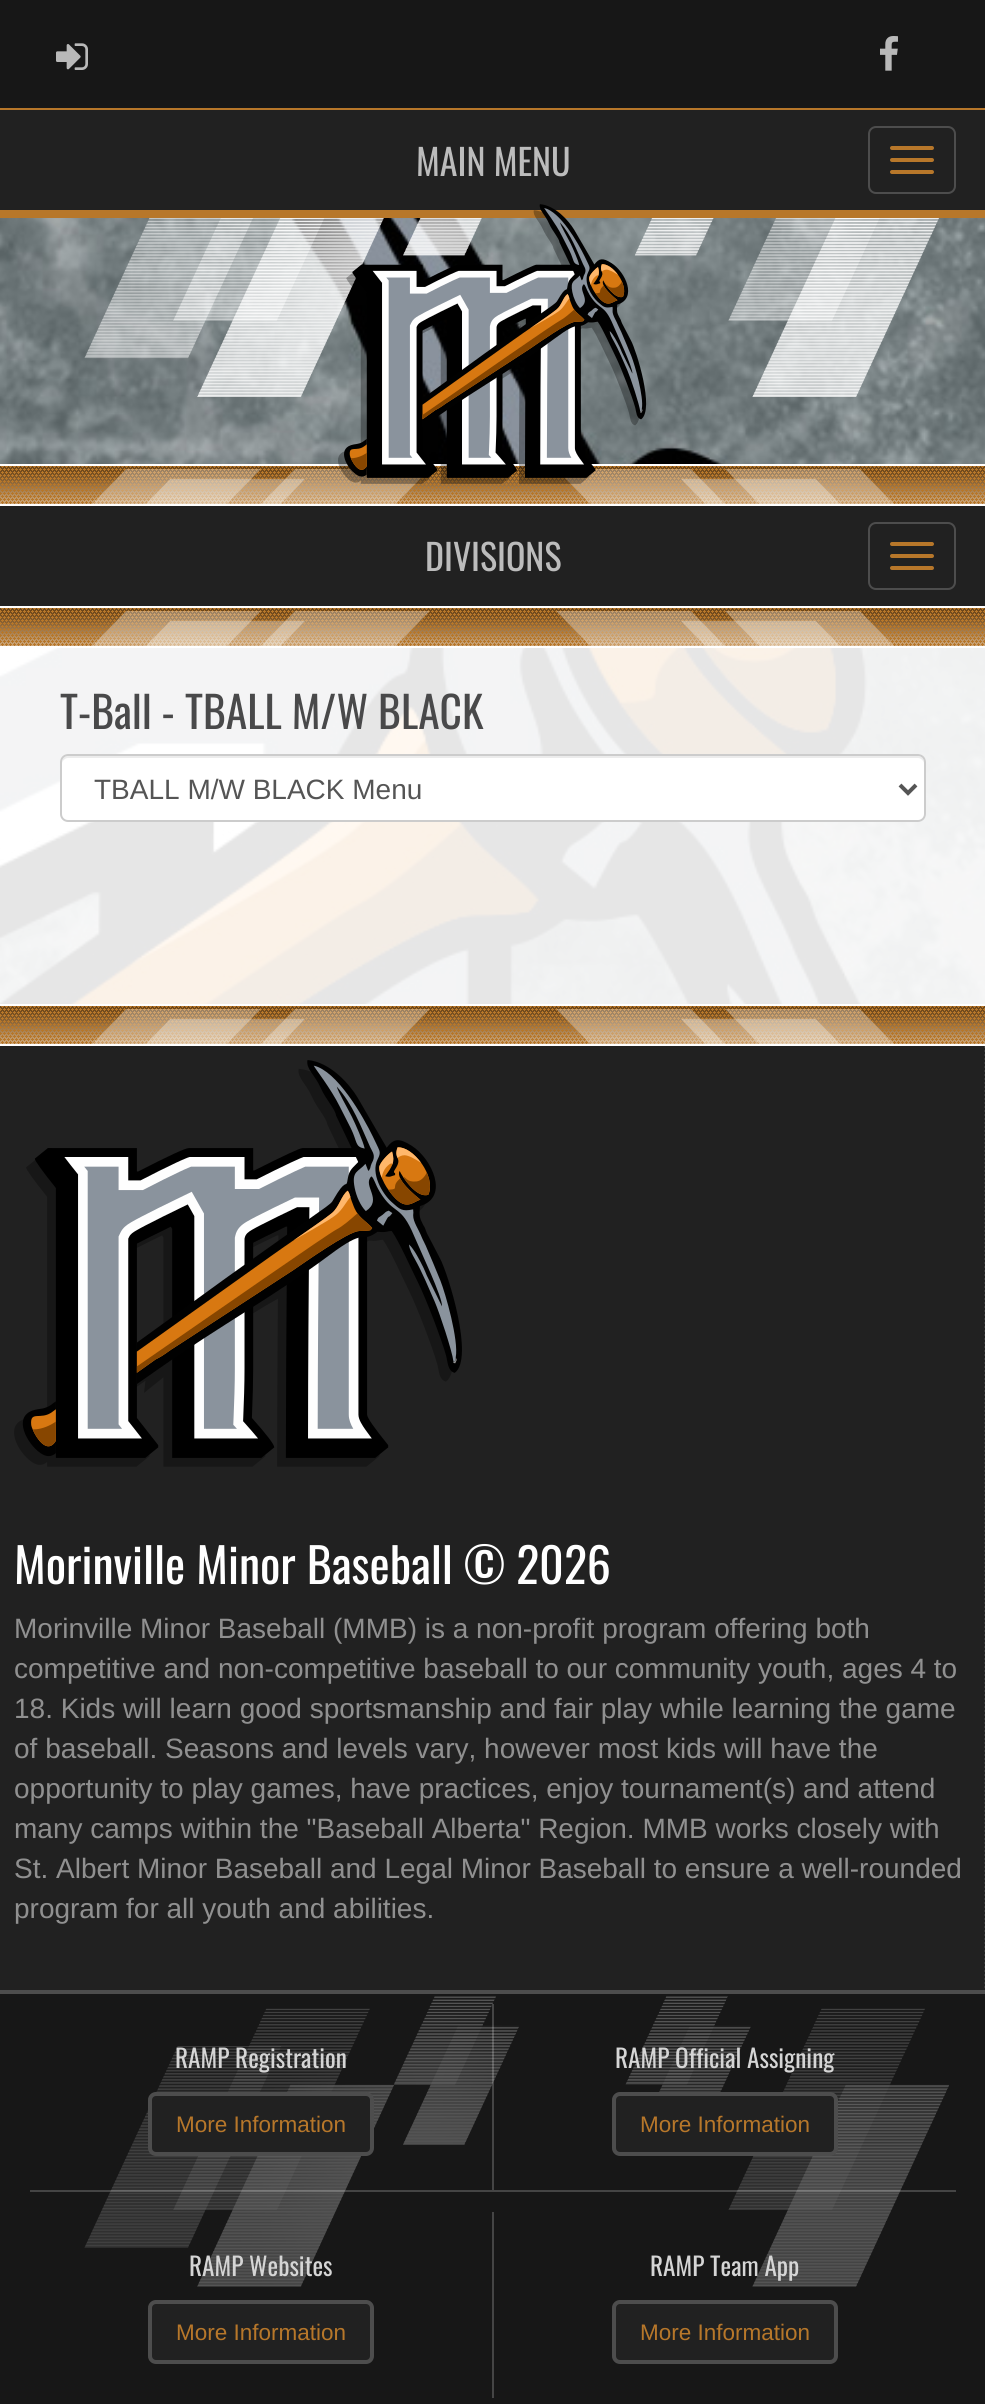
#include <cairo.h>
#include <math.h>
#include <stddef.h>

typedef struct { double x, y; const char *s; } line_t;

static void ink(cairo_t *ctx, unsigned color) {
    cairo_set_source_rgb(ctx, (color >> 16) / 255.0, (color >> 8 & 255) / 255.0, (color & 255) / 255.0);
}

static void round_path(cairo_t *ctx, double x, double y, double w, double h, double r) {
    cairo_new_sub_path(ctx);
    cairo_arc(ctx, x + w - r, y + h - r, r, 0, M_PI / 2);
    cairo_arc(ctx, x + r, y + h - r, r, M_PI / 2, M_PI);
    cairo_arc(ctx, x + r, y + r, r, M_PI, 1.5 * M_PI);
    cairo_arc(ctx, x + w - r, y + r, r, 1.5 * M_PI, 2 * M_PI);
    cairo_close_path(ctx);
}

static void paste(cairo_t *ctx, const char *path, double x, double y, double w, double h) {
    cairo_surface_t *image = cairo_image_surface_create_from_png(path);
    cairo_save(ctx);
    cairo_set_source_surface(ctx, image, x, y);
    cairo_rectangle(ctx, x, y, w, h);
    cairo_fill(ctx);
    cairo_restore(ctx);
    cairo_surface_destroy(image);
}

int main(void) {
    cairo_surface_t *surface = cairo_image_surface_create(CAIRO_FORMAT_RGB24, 985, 2404);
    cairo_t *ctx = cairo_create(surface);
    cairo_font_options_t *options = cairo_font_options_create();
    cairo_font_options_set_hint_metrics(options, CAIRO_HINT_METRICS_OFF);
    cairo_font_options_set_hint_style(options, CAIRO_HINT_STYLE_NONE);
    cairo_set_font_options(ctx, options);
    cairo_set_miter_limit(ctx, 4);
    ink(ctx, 0xFFFFFF);
    cairo_paint(ctx);
    ink(ctx, 0xB7772A);
    cairo_rectangle(ctx, 0, 108, 985, 2);
    cairo_fill(ctx);
    ink(ctx, 0x171717);
    cairo_rectangle(ctx, 0, 0, 985, 108);
    cairo_fill(ctx);
    paste(ctx, "media/1.png", 56, 43, 32, 27);
    paste(ctx, "media/2.png", 880, 36, 18, 35);
    ink(ctx, 0x212121);
    cairo_rectangle(ctx, 0, 110, 985, 100);
    cairo_fill(ctx);
    ink(ctx, 0xB7772A);
    cairo_rectangle(ctx, 0, 210, 985, 8);
    cairo_fill(ctx);
    cairo_select_font_face(ctx, "Oswald", CAIRO_FONT_SLANT_NORMAL, CAIRO_FONT_WEIGHT_NORMAL);
    cairo_set_font_size(ctx, 36);
    ink(ctx, 0xBCBCBC);
    cairo_move_to(ctx, 416, 176);
    cairo_show_text(ctx, "MAIN MENU");
    round_path(ctx, 869, 127, 86, 66, 7);
    ink(ctx, 0x4D4D4D);
    cairo_stroke(ctx);
    ink(ctx, 0xB7772A);
    round_path(ctx, 890, 146, 44, 4, 2);
    cairo_fill(ctx);
    round_path(ctx, 890, 158, 44, 4, 2);
    cairo_fill(ctx);
    round_path(ctx, 890, 170, 44, 4, 2);
    cairo_fill(ctx);
    paste(ctx, "media/4.png", 0, 218, 985, 786);
    paste(ctx, "media/5.png", 84, 218, 855, 179);
    cairo_rectangle(ctx, 0, 466, 985, 38);
    cairo_fill(ctx);
    paste(ctx, "media/6.png", 0, 464, 985, 42);
    paste(ctx, "media/3.png", 338, 204, 309, 280);
    ink(ctx, 0x212121);
    cairo_rectangle(ctx, 0, 506, 985, 100);
    cairo_fill(ctx);
    ink(ctx, 0xBCBCBC);
    cairo_move_to(ctx, 425, 571);
    cairo_show_text(ctx, "DIVISIONS");
    round_path(ctx, 869, 523, 86, 66, 7);
    ink(ctx, 0x4D4D4D);
    cairo_stroke(ctx);
    ink(ctx, 0xB7772A);
    round_path(ctx, 890, 542, 44, 4, 2);
    cairo_fill(ctx);
    round_path(ctx, 890, 554, 44, 4, 2);
    cairo_fill(ctx);
    round_path(ctx, 890, 566, 44, 4, 2);
    cairo_fill(ctx);
    cairo_rectangle(ctx, 0, 608, 985, 38);
    cairo_fill(ctx);
    paste(ctx, "media/6.png", 0, 606, 985, 42);
    cairo_set_source_rgba(ctx, 1, 1, 1, 0.9);
    cairo_rectangle(ctx, 0, 648, 985, 356);
    cairo_fill(ctx);
    cairo_set_font_size(ctx, 43.5);
    ink(ctx, 0x49494A);
    cairo_move_to(ctx, 60, 729);
    cairo_show_text(ctx, "T-Ball -");
    cairo_move_to(ctx, 185, 729);
    cairo_show_text(ctx, "TBALL M/W BLACK");
    ink(ctx, 0xFFFFFF);
    round_path(ctx, 60, 754, 866, 68, 8);
    cairo_fill(ctx);
    ink(ctx, 0xECECEC);
    cairo_new_path(ctx);
    cairo_move_to(ctx, 68, 758);
    cairo_line_to(ctx, 918, 758);
    cairo_curve_to(ctx, 921, 758, 924, 761, 924, 764);
    cairo_curve_to(ctx, 924, 760, 923, 756, 918, 756);
    cairo_line_to(ctx, 68, 756);
    cairo_curve_to(ctx, 63, 756, 62, 760, 62, 764);
    cairo_curve_to(ctx, 62, 761, 65, 758, 68, 758);
    cairo_close_path(ctx);
    cairo_fill(ctx);
    round_path(ctx, 61, 755, 864, 66, 7);
    ink(ctx, 0xCCCCCC);
    cairo_stroke(ctx);
    cairo_new_path(ctx);
    cairo_move_to(ctx, 900, 785);
    cairo_line_to(ctx, 908, 793);
    cairo_line_to(ctx, 916, 785);
    ink(ctx, 0x555555);
    cairo_set_line_width(ctx, 4);
    cairo_stroke(ctx);
    cairo_select_font_face(ctx, "Liberation Sans", CAIRO_FONT_SLANT_NORMAL, CAIRO_FONT_WEIGHT_NORMAL);
    cairo_set_font_size(ctx, 28);
    cairo_move_to(ctx, 94, 799);
    cairo_show_text(ctx, "TBALL M/W BLACK Menu");
    ink(ctx, 0xB7772A);
    cairo_rectangle(ctx, 0, 1006, 985, 38);
    cairo_fill(ctx);
    paste(ctx, "media/6.png", 0, 1004, 985, 42);
    ink(ctx, 0x212121);
    cairo_rectangle(ctx, 0, 1046, 985, 944);
    cairo_fill(ctx);
    cairo_new_path(ctx);
    cairo_move_to(ctx, 985, 1046);
    cairo_line_to(ctx, 985, 1482);
    ink(ctx, 0x373737);
    cairo_set_line_width(ctx, 2);
    cairo_set_dash(ctx, (double[]){2, 2}, 2, 0);
    cairo_stroke(ctx);
    paste(ctx, "media/7.png", 14, 1060, 448, 407);
    cairo_new_path(ctx);
    cairo_move_to(ctx, 985, 1482);
    cairo_line_to(ctx, 985, 1962);
    cairo_stroke(ctx);
    cairo_select_font_face(ctx, "Oswald", CAIRO_FONT_SLANT_NORMAL, CAIRO_FONT_WEIGHT_NORMAL);
    cairo_set_font_size(ctx, 48);
    ink(ctx, 0xFFFFFF);
    cairo_move_to(ctx, 14, 1584);
    cairo_show_text(ctx, "Morinville Minor Baseball © 2026");
    cairo_select_font_face(ctx, "Liberation Sans", CAIRO_FONT_SLANT_NORMAL, CAIRO_FONT_WEIGHT_NORMAL);
    cairo_set_font_size(ctx, 28);
    ink(ctx, 0x909090);
    {
        static const line_t items[] = {
            {14, 1638, "Morinville Minor Baseball (MMB) is a non-profit program offering both"},
            {14, 1678, "competitive and non-competitive baseball to our community youth, ages 4 to"},
            {14, 1718, "18. Kids will learn good sportsmanship and fair play while learning the game"},
            {14, 1758, "of baseball. Seasons and levels vary, however most kids will have the"},
            {14, 1798, "opportunity to play games, have practices, enjoy tournament(s) and attend"},
            {14, 1838, "many camps within the \"Baseball Alberta\" Region. MMB works closely with"},
            {14, 1878, "St. Albert Minor Baseball and Legal Minor Baseball to ensure a well-rounded"},
            {14, 1918, "program for all youth and abilities."},
        };
        for (size_t i = 0; i < sizeof items / sizeof *items; i++) {
            cairo_move_to(ctx, items[i].x, items[i].y);
            cairo_show_text(ctx, items[i].s);
        }
    }
    cairo_new_path(ctx);
    cairo_move_to(ctx, 985, 1962);
    cairo_line_to(ctx, 985, 1990);
    ink(ctx, 0x373737);
    cairo_stroke(ctx);
    ink(ctx, 0x4D4D4D);
    cairo_rectangle(ctx, 0, 1990, 985, 4);
    cairo_fill(ctx);
    ink(ctx, 0x171717);
    cairo_rectangle(ctx, 0, 1994, 985, 410);
    cairo_fill(ctx);
    paste(ctx, "media/8.png", 84, 1996, 865, 291);
    cairo_set_source_rgba(ctx, 1, 1, 1, 0.2);
    cairo_new_path(ctx);
    cairo_move_to(ctx, 494, 2004);
    cairo_line_to(ctx, 494, 2192);
    cairo_line_to(ctx, 492, 2190);
    cairo_line_to(ctx, 492, 2004);
    cairo_close_path(ctx);
    cairo_fill(ctx);
    cairo_new_path(ctx);
    cairo_move_to(ctx, 494, 2192);
    cairo_line_to(ctx, 30, 2192);
    cairo_line_to(ctx, 30, 2190);
    cairo_line_to(ctx, 492, 2190);
    cairo_close_path(ctx);
    cairo_fill(ctx);
    cairo_select_font_face(ctx, "Oswald", CAIRO_FONT_SLANT_NORMAL, CAIRO_FONT_WEIGHT_NORMAL);
    cairo_set_font_size(ctx, 25.25);
    ink(ctx, 0xD5D5D5);
    cairo_move_to(ctx, 175, 2068);
    cairo_show_text(ctx, "RAMP Registration");
    ink(ctx, 0x212121);
    round_path(ctx, 148, 2092, 226, 64, 8);
    cairo_fill(ctx);
    round_path(ctx, 150, 2094, 222, 60, 6);
    cairo_set_source_rgba(ctx, 1, 1, 1, 0.2);
    cairo_set_line_width(ctx, 4);
    cairo_set_dash(ctx, NULL, 0, 0);
    cairo_stroke(ctx);
    cairo_select_font_face(ctx, "Liberation Sans", CAIRO_FONT_SLANT_NORMAL, CAIRO_FONT_WEIGHT_NORMAL);
    cairo_set_font_size(ctx, 22.5);
    ink(ctx, 0xB7772A);
    cairo_move_to(ctx, 176, 2132);
    cairo_show_text(ctx, "More Information");
    cairo_set_source_rgba(ctx, 1, 1, 1, 0.2);
    cairo_rectangle(ctx, 494, 2190, 462, 2);
    cairo_fill(ctx);
    cairo_select_font_face(ctx, "Oswald", CAIRO_FONT_SLANT_NORMAL, CAIRO_FONT_WEIGHT_NORMAL);
    cairo_set_font_size(ctx, 25.25);
    ink(ctx, 0xD5D5D5);
    cairo_move_to(ctx, 615, 2068);
    cairo_show_text(ctx, "RAMP Official Assigning");
    ink(ctx, 0x212121);
    round_path(ctx, 612, 2092, 226, 64, 8);
    cairo_fill(ctx);
    round_path(ctx, 614, 2094, 222, 60, 6);
    cairo_set_source_rgba(ctx, 1, 1, 1, 0.2);
    cairo_stroke(ctx);
    cairo_select_font_face(ctx, "Liberation Sans", CAIRO_FONT_SLANT_NORMAL, CAIRO_FONT_WEIGHT_NORMAL);
    cairo_set_font_size(ctx, 22.5);
    ink(ctx, 0xB7772A);
    cairo_move_to(ctx, 640, 2132);
    cairo_show_text(ctx, "More Information");
    ink(ctx, 0x454545);
    cairo_rectangle(ctx, 492, 2212, 2, 186);
    cairo_fill(ctx);
    cairo_select_font_face(ctx, "Oswald", CAIRO_FONT_SLANT_NORMAL, CAIRO_FONT_WEIGHT_NORMAL);
    cairo_set_font_size(ctx, 25.25);
    ink(ctx, 0xD5D5D5);
    cairo_move_to(ctx, 189, 2276);
    cairo_show_text(ctx, "RAMP Websites");
    ink(ctx, 0x212121);
    round_path(ctx, 148, 2300, 226, 64, 8);
    cairo_fill(ctx);
    round_path(ctx, 150, 2302, 222, 60, 6);
    cairo_set_source_rgba(ctx, 1, 1, 1, 0.2);
    cairo_stroke(ctx);
    cairo_select_font_face(ctx, "Liberation Sans", CAIRO_FONT_SLANT_NORMAL, CAIRO_FONT_WEIGHT_NORMAL);
    cairo_set_font_size(ctx, 22.5);
    ink(ctx, 0xB7772A);
    cairo_move_to(ctx, 176, 2340);
    cairo_show_text(ctx, "More Information");
    cairo_select_font_face(ctx, "Oswald", CAIRO_FONT_SLANT_NORMAL, CAIRO_FONT_WEIGHT_NORMAL);
    cairo_set_font_size(ctx, 25.25);
    ink(ctx, 0xD5D5D5);
    cairo_move_to(ctx, 650, 2276);
    cairo_show_text(ctx, "RAMP Team App");
    ink(ctx, 0x212121);
    round_path(ctx, 612, 2300, 226, 64, 8);
    cairo_fill(ctx);
    round_path(ctx, 614, 2302, 222, 60, 6);
    cairo_set_source_rgba(ctx, 1, 1, 1, 0.2);
    cairo_stroke(ctx);
    cairo_select_font_face(ctx, "Liberation Sans", CAIRO_FONT_SLANT_NORMAL, CAIRO_FONT_WEIGHT_NORMAL);
    cairo_set_font_size(ctx, 22.5);
    ink(ctx, 0xB7772A);
    cairo_move_to(ctx, 640, 2340);
    cairo_show_text(ctx, "More Information");
    cairo_surface_write_to_png(surface, "image.png");
    cairo_font_options_destroy(options);
    cairo_destroy(ctx);
    cairo_surface_destroy(surface);
    return 0;
}
